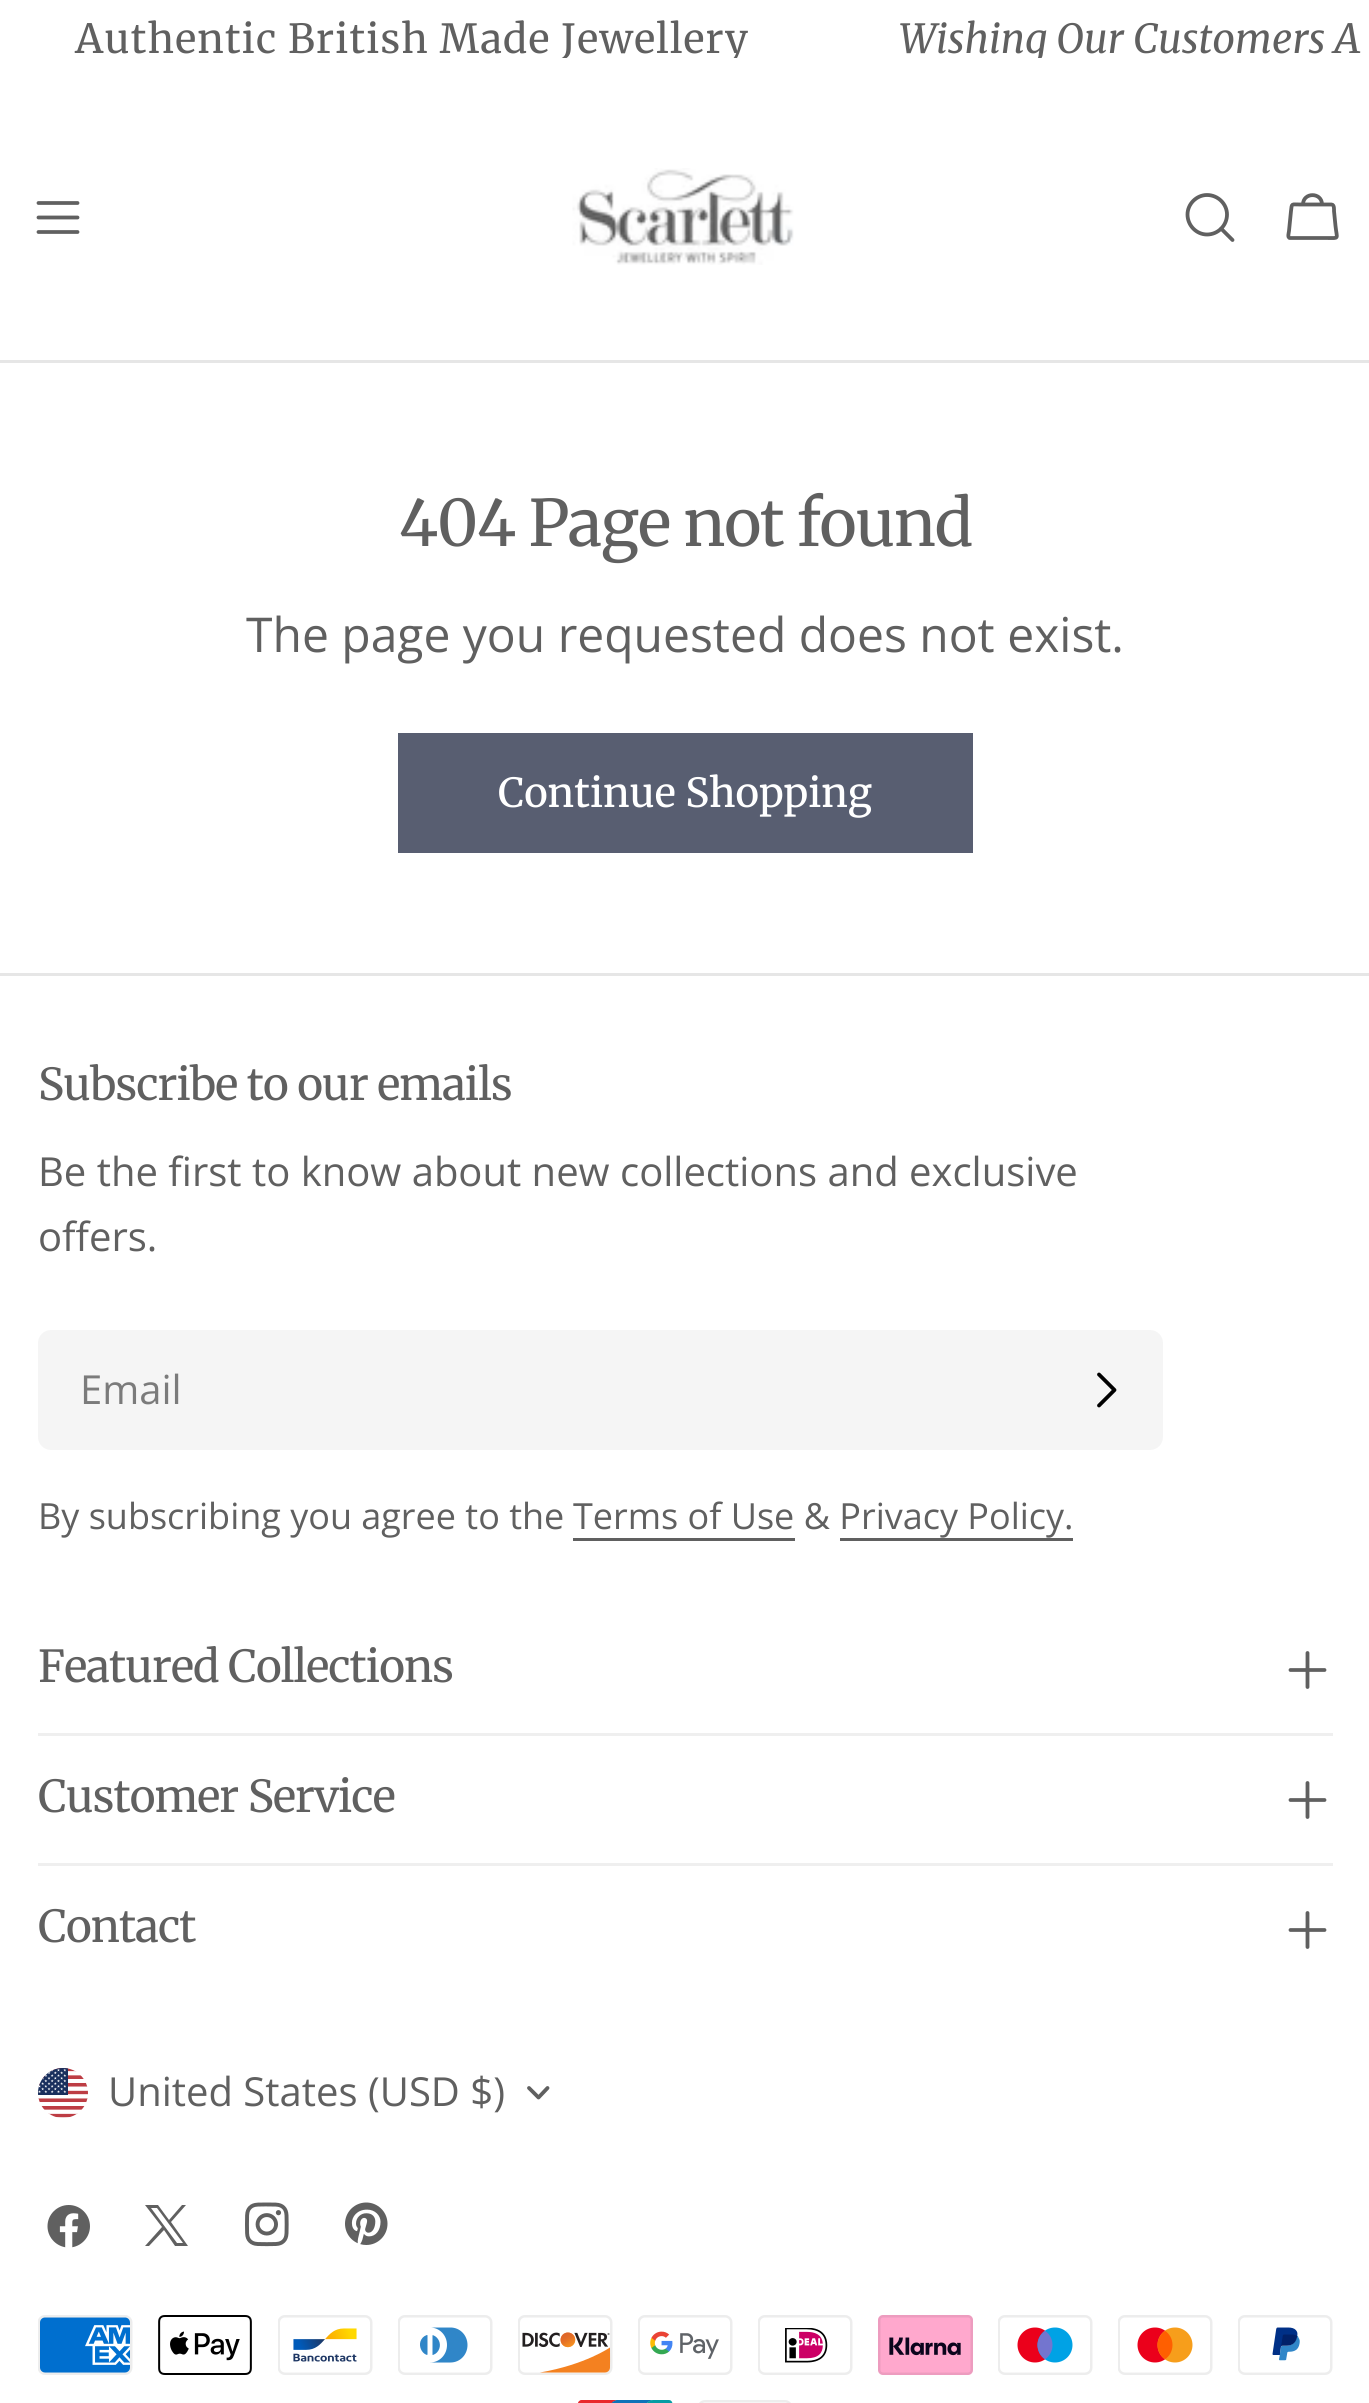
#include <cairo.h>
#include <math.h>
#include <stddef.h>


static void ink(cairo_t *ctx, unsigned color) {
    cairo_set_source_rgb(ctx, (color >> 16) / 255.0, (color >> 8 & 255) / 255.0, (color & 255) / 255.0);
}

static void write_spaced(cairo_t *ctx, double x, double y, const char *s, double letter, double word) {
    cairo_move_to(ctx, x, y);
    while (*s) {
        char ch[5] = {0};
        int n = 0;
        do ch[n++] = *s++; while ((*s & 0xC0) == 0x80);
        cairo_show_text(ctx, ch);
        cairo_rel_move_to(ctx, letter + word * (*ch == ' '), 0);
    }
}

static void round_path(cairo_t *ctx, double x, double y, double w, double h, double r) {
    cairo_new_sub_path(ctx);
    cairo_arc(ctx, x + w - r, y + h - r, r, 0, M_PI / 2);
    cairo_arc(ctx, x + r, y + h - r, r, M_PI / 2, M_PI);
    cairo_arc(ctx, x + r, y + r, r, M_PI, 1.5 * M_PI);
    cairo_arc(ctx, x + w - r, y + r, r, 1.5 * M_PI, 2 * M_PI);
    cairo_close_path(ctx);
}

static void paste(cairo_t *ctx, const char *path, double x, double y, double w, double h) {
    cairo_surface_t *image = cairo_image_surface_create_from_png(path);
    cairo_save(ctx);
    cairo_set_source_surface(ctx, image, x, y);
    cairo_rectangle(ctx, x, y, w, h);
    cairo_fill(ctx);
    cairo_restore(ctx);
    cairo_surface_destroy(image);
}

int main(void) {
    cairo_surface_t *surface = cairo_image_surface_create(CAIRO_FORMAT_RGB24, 1369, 2403);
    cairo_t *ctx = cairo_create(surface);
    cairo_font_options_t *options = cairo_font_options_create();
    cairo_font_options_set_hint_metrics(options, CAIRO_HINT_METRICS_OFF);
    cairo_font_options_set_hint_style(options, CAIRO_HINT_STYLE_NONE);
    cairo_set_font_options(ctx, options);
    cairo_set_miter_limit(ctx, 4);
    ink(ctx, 0xFFFFFF);
    cairo_paint(ctx);
    cairo_save(ctx);
    cairo_rectangle(ctx, 0, 18, 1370, 40);
    cairo_clip(ctx);
    cairo_select_font_face(ctx, "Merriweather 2", CAIRO_FONT_SLANT_NORMAL, CAIRO_FONT_WEIGHT_NORMAL);
    cairo_set_font_size(ctx, 40);
    ink(ctx, 0x606060);
    write_spaced(ctx, 75, 53, "Authentic British Made Jewellery", 1.2, 0);
    cairo_select_font_face(ctx, "Merriweather", CAIRO_FONT_SLANT_ITALIC, CAIRO_FONT_WEIGHT_NORMAL);
    cairo_move_to(ctx, 899, 53);
    cairo_show_text(ctx, "Wishing Our Customers A");
    cairo_restore(ctx);
    ink(ctx, 0xE6E6E6);
    cairo_rectangle(ctx, 0, 360, 1369, 3);
    cairo_fill(ctx);
    cairo_new_path(ctx);
    cairo_move_to(ctx, 38.5, 217.5);
    cairo_line_to(ctx, 77.5, 217.5);
    cairo_move_to(ctx, 38.5, 203);
    cairo_line_to(ctx, 77.5, 203);
    cairo_move_to(ctx, 38.5, 232);
    cairo_line_to(ctx, 77.5, 232);
    ink(ctx, 0x606060);
    cairo_set_line_width(ctx, 3.8);
    cairo_set_line_cap(ctx, CAIRO_LINE_CAP_ROUND);
    cairo_set_line_join(ctx, CAIRO_LINE_JOIN_ROUND);
    cairo_stroke(ctx);
    paste(ctx, "media/1.png", 572, 168, 222, 97);
    cairo_new_path(ctx);
    cairo_move_to(ctx, 1207, 234.5);
    cairo_curve_to(ctx, 1218, 234.5, 1227, 225.5, 1227, 214.5);
    cairo_curve_to(ctx, 1227, 204, 1218, 195, 1207, 195);
    cairo_curve_to(ctx, 1196.5, 195, 1187.5, 204, 1187.5, 214.5);
    cairo_curve_to(ctx, 1187.5, 225.5, 1196.5, 234.5, 1207, 234.5);
    cairo_close_path(ctx);
    cairo_move_to(ctx, 1221, 228.5);
    cairo_line_to(ctx, 1232.5, 240);
    cairo_stroke(ctx);
    cairo_new_path(ctx);
    cairo_move_to(ctx, 1331.5, 204.5);
    cairo_line_to(ctx, 1300, 204.5);
    cairo_curve_to(ctx, 1291, 204.5, 1292, 203, 1291, 211);
    cairo_line_to(ctx, 1289, 231);
    cairo_curve_to(ctx, 1289, 232, 1287, 238, 1290, 238);
    cairo_line_to(ctx, 1327.5, 238);
    cairo_curve_to(ctx, 1339.5, 238, 1337, 239.5, 1335.5, 226);
    cairo_line_to(ctx, 1334, 211);
    cairo_curve_to(ctx, 1334, 210, 1334.5, 204.5, 1331.5, 204.5);
    cairo_close_path(ctx);
    cairo_move_to(ctx, 1303, 204.5);
    cairo_curve_to(ctx, 1303, 192, 1322, 192, 1322, 204.5);
    cairo_stroke(ctx);
    cairo_select_font_face(ctx, "Merriweather", CAIRO_FONT_SLANT_NORMAL, CAIRO_FONT_WEIGHT_NORMAL);
    cairo_set_font_size(ctx, 64);
    write_spaced(ctx, 399, 546, "404 Page not found", -1.25, 0);
    cairo_select_font_face(ctx, "Open Sans", CAIRO_FONT_SLANT_NORMAL, CAIRO_FONT_WEIGHT_NORMAL);
    cairo_set_font_size(ctx, 48);
    cairo_move_to(ctx, 246, 652);
    cairo_show_text(ctx, "The page you requested does not exist.");
    ink(ctx, 0x585E71);
    cairo_rectangle(ctx, 398, 733, 575, 120);
    cairo_fill(ctx);
    cairo_select_font_face(ctx, "Merriweather Medium", CAIRO_FONT_SLANT_NORMAL, CAIRO_FONT_WEIGHT_NORMAL);
    cairo_set_font_size(ctx, 40);
    ink(ctx, 0xFFFFFF);
    cairo_move_to(ctx, 498, 807);
    cairo_show_text(ctx, "Continue Shopping");
    ink(ctx, 0xE6E6E6);
    cairo_rectangle(ctx, 0, 973, 1369, 3);
    cairo_fill(ctx);
    cairo_select_font_face(ctx, "Merriweather 2", CAIRO_FONT_SLANT_NORMAL, CAIRO_FONT_WEIGHT_NORMAL);
    cairo_set_font_size(ctx, 44);
    ink(ctx, 0x606060);
    write_spaced(ctx, 38, 1100, "Subscribe to our emails", -0.9, 0);
    cairo_select_font_face(ctx, "Open Sans", CAIRO_FONT_SLANT_NORMAL, CAIRO_FONT_WEIGHT_NORMAL);
    cairo_set_font_size(ctx, 40);
    cairo_move_to(ctx, 38, 1186);
    cairo_show_text(ctx, "Be the first to know about new collections and exclusive");
    cairo_move_to(ctx, 38, 1251);
    cairo_show_text(ctx, "offers.");
    ink(ctx, 0xF5F5F5);
    round_path(ctx, 38, 1330, 1125, 120, 13);
    cairo_fill(ctx);
    ink(ctx, 0x7B7B7B);
    cairo_move_to(ctx, 80, 1404);
    cairo_show_text(ctx, "Email");
    cairo_new_path(ctx);
    cairo_move_to(ctx, 1099, 1374.5);
    cairo_line_to(ctx, 1114.5, 1390);
    cairo_line_to(ctx, 1099, 1405.5);
    ink(ctx, 0x000000);
    cairo_stroke(ctx);
    cairo_set_font_size(ctx, 36);
    ink(ctx, 0x606060);
    cairo_move_to(ctx, 38, 1529);
    cairo_show_text(ctx, "By subscribing you agree to the");
    cairo_move_to(ctx, 573, 1529);
    cairo_show_text(ctx, "Terms of Use & Privacy Policy.");
    cairo_rectangle(ctx, 573, 1538, 222, 3);
    cairo_fill(ctx);
    cairo_rectangle(ctx, 840, 1538, 233, 3);
    cairo_fill(ctx);
    cairo_select_font_face(ctx, "Merriweather 2", CAIRO_FONT_SLANT_NORMAL, CAIRO_FONT_WEIGHT_NORMAL);
    cairo_set_font_size(ctx, 44);
    write_spaced(ctx, 38, 1682, "Featured Collections", -0.9, 0);
    cairo_new_path(ctx);
    cairo_move_to(ctx, 1290.5, 1670);
    cairo_line_to(ctx, 1324.5, 1670);
    cairo_move_to(ctx, 1307.5, 1653);
    cairo_line_to(ctx, 1307.5, 1687);
    cairo_stroke(ctx);
    ink(ctx, 0xEFEFEF);
    cairo_rectangle(ctx, 38, 1733, 1295, 3);
    cairo_fill(ctx);
    ink(ctx, 0x606060);
    write_spaced(ctx, 38, 1812, "Customer Service", -0.9, 0);
    cairo_new_path(ctx);
    cairo_move_to(ctx, 1290.5, 1800);
    cairo_line_to(ctx, 1324.5, 1800);
    cairo_move_to(ctx, 1307.5, 1783);
    cairo_line_to(ctx, 1307.5, 1817);
    cairo_stroke(ctx);
    ink(ctx, 0xEFEFEF);
    cairo_rectangle(ctx, 38, 1863, 1295, 3);
    cairo_fill(ctx);
    ink(ctx, 0x606060);
    write_spaced(ctx, 38, 1942, "Contact", -0.9, 0);
    cairo_new_path(ctx);
    cairo_move_to(ctx, 1290.5, 1930);
    cairo_line_to(ctx, 1324.5, 1930);
    cairo_move_to(ctx, 1307.5, 1913);
    cairo_line_to(ctx, 1307.5, 1947);
    cairo_stroke(ctx);
    paste(ctx, "media/2.png", 38, 2068, 50, 50);
    cairo_select_font_face(ctx, "Open Sans", CAIRO_FONT_SLANT_NORMAL, CAIRO_FONT_WEIGHT_NORMAL);
    cairo_set_font_size(ctx, 40);
    cairo_move_to(ctx, 108, 2106);
    cairo_show_text(ctx, "United States (USD $)");
    cairo_new_path(ctx);
    cairo_move_to(ctx, 547.5, 2088);
    cairo_line_to(ctx, 538.5, 2097.5);
    cairo_line_to(ctx, 529, 2088);
    cairo_stroke(ctx);
    paste(ctx, "media/3.png", 47, 2205, 43, 43);
    cairo_new_path(ctx);
    cairo_move_to(ctx, 145, 2205);
    cairo_line_to(ctx, 162, 2227);
    cairo_line_to(ctx, 145, 2246);
    cairo_line_to(ctx, 149, 2246);
    cairo_line_to(ctx, 164, 2230);
    cairo_line_to(ctx, 175, 2246);
    cairo_line_to(ctx, 188, 2246);
    cairo_line_to(ctx, 171, 2222);
    cairo_line_to(ctx, 186, 2205);
    cairo_line_to(ctx, 182, 2205);
    cairo_line_to(ctx, 169, 2220);
    cairo_line_to(ctx, 158, 2205);
    cairo_close_path(ctx);
    cairo_move_to(ctx, 151, 2208);
    cairo_line_to(ctx, 157, 2208);
    cairo_line_to(ctx, 183, 2243);
    cairo_line_to(ctx, 177, 2243);
    cairo_close_path(ctx);
    cairo_fill(ctx);
    paste(ctx, "media/4.png", 245, 2202, 44, 45);
    paste(ctx, "media/5.png", 345, 2202, 43, 43);
    paste(ctx, "media/6.png", 38, 2315, 95, 60);
    paste(ctx, "media/7.png", 158, 2315, 94, 60);
    paste(ctx, "media/8.png", 278, 2315, 95, 60);
    paste(ctx, "media/9.png", 398, 2315, 95, 60);
    paste(ctx, "media/10.png", 518, 2315, 95, 60);
    paste(ctx, "media/11.png", 638, 2315, 95, 60);
    paste(ctx, "media/12.png", 758, 2315, 95, 60);
    paste(ctx, "media/13.png", 878, 2315, 95, 60);
    paste(ctx, "media/14.png", 998, 2315, 95, 60);
    paste(ctx, "media/15.png", 1118, 2315, 95, 60);
    paste(ctx, "media/16.png", 1238, 2315, 95, 60);
    paste(ctx, "media/17.png", 578, 2400, 95, 3);
    paste(ctx, "media/18.png", 699, 2400, 92, 3);
    cairo_surface_write_to_png(surface, "image.png");
    cairo_font_options_destroy(options);
    cairo_destroy(ctx);
    cairo_surface_destroy(surface);
    return 0;
}
